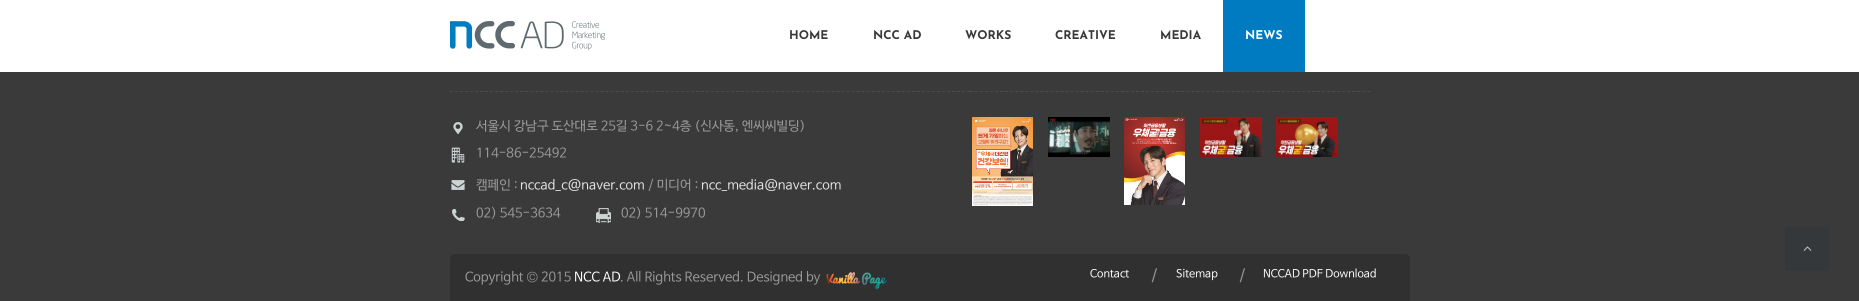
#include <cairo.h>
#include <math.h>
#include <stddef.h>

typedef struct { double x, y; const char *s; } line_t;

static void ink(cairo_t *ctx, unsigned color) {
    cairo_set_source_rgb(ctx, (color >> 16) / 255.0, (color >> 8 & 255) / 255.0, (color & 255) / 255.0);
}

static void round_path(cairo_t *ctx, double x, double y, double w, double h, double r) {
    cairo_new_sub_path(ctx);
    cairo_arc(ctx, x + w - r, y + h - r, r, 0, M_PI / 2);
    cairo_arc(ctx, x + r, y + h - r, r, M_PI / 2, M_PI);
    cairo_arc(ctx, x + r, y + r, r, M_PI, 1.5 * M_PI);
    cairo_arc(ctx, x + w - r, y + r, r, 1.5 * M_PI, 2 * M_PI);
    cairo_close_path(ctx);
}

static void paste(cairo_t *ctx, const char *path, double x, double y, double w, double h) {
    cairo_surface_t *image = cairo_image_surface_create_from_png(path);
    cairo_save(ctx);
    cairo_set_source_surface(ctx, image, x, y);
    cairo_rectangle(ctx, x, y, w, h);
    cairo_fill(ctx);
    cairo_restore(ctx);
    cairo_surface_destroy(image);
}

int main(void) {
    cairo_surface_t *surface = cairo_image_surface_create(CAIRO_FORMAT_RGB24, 1859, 301);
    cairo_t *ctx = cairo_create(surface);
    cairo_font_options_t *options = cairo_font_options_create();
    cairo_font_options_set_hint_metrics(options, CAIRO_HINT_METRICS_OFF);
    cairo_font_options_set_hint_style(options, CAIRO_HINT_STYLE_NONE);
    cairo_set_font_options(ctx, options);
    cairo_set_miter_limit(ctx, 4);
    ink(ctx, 0x3A3A3A);
    cairo_paint(ctx);
    ink(ctx, 0xFFFFFF);
    cairo_rectangle(ctx, 0, 0, 1859, 72);
    cairo_fill(ctx);
    paste(ctx, "media/1.png", 450, 21, 155, 29);
    cairo_select_font_face(ctx, "Josefin Sans Thin", CAIRO_FONT_SLANT_NORMAL, CAIRO_FONT_WEIGHT_NORMAL);
    cairo_set_font_size(ctx, 12);
    ink(ctx, 0x393939);
    {
        static const line_t items[] = {
            {789, 39, "HOME"},
            {873, 39, "NCC AD"},
            {965, 39, "WORKS"},
            {1055, 39, "CREATIVE"},
            {1160, 39, "MEDIA"},
        };
        for (size_t i = 0; i < sizeof items / sizeof *items; i++) {
            cairo_move_to(ctx, items[i].x, items[i].y);
            cairo_show_text(ctx, items[i].s);
        }
    }
    ink(ctx, 0x007BC1);
    cairo_rectangle(ctx, 1223, 0, 82, 72);
    cairo_fill(ctx);
    ink(ctx, 0xFFFFFF);
    cairo_move_to(ctx, 1245, 39);
    cairo_show_text(ctx, "NEWS");
    cairo_new_path(ctx);
    cairo_move_to(ctx, 450, 91.5);
    cairo_line_to(ctx, 970, 91.5);
    ink(ctx, 0x4C4C4C);
    cairo_set_line_width(ctx, 1);
    cairo_set_dash(ctx, (double[]){3, 2.02}, 2, 0);
    cairo_stroke(ctx);
    paste(ctx, "media/2.png", 453, 122, 10, 12);
    cairo_save(ctx);
    cairo_rectangle(ctx, 476, 120, 494, 13);
    cairo_clip(ctx);
    cairo_select_font_face(ctx, "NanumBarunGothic", CAIRO_FONT_SLANT_NORMAL, CAIRO_FONT_WEIGHT_NORMAL);
    cairo_set_font_size(ctx, 13);
    ink(ctx, 0x999999);
    cairo_move_to(ctx, 476, 130);
    cairo_show_text(ctx, "서울시 강남구 도산대로 25길 3-6 2~4층 (신사동, 엔씨씨빌딩)");
    cairo_restore(ctx);
    paste(ctx, "media/3.png", 451, 147, 14, 16);
    cairo_select_font_face(ctx, "NanumBarunGothic", CAIRO_FONT_SLANT_NORMAL, CAIRO_FONT_WEIGHT_NORMAL);
    cairo_set_font_size(ctx, 13);
    ink(ctx, 0x999999);
    cairo_move_to(ctx, 476, 157);
    cairo_show_text(ctx, "114-86-25492");
    paste(ctx, "media/4.png", 451, 180, 14, 10);
    cairo_move_to(ctx, 476, 189);
    cairo_show_text(ctx, "캠페인 :");
    ink(ctx, 0xE2E2E2);
    cairo_move_to(ctx, 520, 189);
    cairo_show_text(ctx, "nccad_c@naver.com");
    ink(ctx, 0x999999);
    cairo_move_to(ctx, 648, 189);
    cairo_show_text(ctx, "/ 미디어 :");
    ink(ctx, 0xE2E2E2);
    cairo_move_to(ctx, 701, 189);
    cairo_show_text(ctx, "ncc_media@naver.com");
    paste(ctx, "media/5.png", 452, 209, 13, 12);
    ink(ctx, 0x999999);
    cairo_move_to(ctx, 476, 217);
    cairo_show_text(ctx, "02) 545-3634");
    paste(ctx, "media/6.png", 596, 208, 15, 15);
    cairo_move_to(ctx, 621, 217);
    cairo_show_text(ctx, "02) 514-9970");
    cairo_new_path(ctx);
    cairo_move_to(ctx, 970, 91.5);
    cairo_line_to(ctx, 1370, 91.5);
    ink(ctx, 0x4C4C4C);
    cairo_set_dash(ctx, (double[]){3, 2.03}, 2, 0);
    cairo_stroke(ctx);
    paste(ctx, "media/7.png", 972, 117, 61, 89);
    paste(ctx, "media/8.png", 1048, 117, 62, 40);
    paste(ctx, "media/9.png", 1124, 117, 61, 88);
    paste(ctx, "media/10.png", 1200, 117, 62, 40);
    paste(ctx, "media/11.png", 1276, 117, 62, 40);
    ink(ctx, 0x303030);
    cairo_new_path(ctx);
    cairo_move_to(ctx, 455, 254);
    cairo_line_to(ctx, 1405, 254);
    cairo_curve_to(ctx, 1408, 254, 1410, 256, 1410, 259);
    cairo_line_to(ctx, 1410, 301);
    cairo_line_to(ctx, 450, 301);
    cairo_line_to(ctx, 450, 259);
    cairo_curve_to(ctx, 450, 256, 452, 254, 455, 254);
    cairo_close_path(ctx);
    cairo_fill(ctx);
    ink(ctx, 0x999999);
    cairo_move_to(ctx, 465, 281);
    cairo_show_text(ctx, "Copyright © 2015");
    ink(ctx, 0xFFFFFF);
    cairo_move_to(ctx, 574, 281);
    cairo_show_text(ctx, "NCC AD");
    ink(ctx, 0x999999);
    cairo_move_to(ctx, 620, 281);
    cairo_show_text(ctx, ". All Rights Reserved. Designed by");
    paste(ctx, "media/12.png", 826, 272, 61, 17);
    cairo_set_font_size(ctx, 11);
    ink(ctx, 0xFFFFFF);
    cairo_move_to(ctx, 1090, 277);
    cairo_show_text(ctx, "Contact");
    cairo_set_font_size(ctx, 15);
    ink(ctx, 0x999999);
    cairo_move_to(ctx, 1151, 280);
    cairo_show_text(ctx, "/");
    cairo_set_font_size(ctx, 11);
    ink(ctx, 0xFFFFFF);
    cairo_move_to(ctx, 1176, 277);
    cairo_show_text(ctx, "Sitemap");
    cairo_set_font_size(ctx, 15);
    ink(ctx, 0x999999);
    cairo_move_to(ctx, 1239, 280);
    cairo_show_text(ctx, "/");
    cairo_set_font_size(ctx, 11);
    ink(ctx, 0xFFFFFF);
    cairo_move_to(ctx, 1263, 277);
    cairo_show_text(ctx, "NCCAD PDF Download");
    ink(ctx, 0x35383B);
    round_path(ctx, 1785, 227, 44, 44, 2);
    cairo_fill(ctx);
    paste(ctx, "media/13.png", 1803, 246, 9, 5);
    cairo_surface_write_to_png(surface, "image.png");
    cairo_font_options_destroy(options);
    cairo_destroy(ctx);
    cairo_surface_destroy(surface);
    return 0;
}
